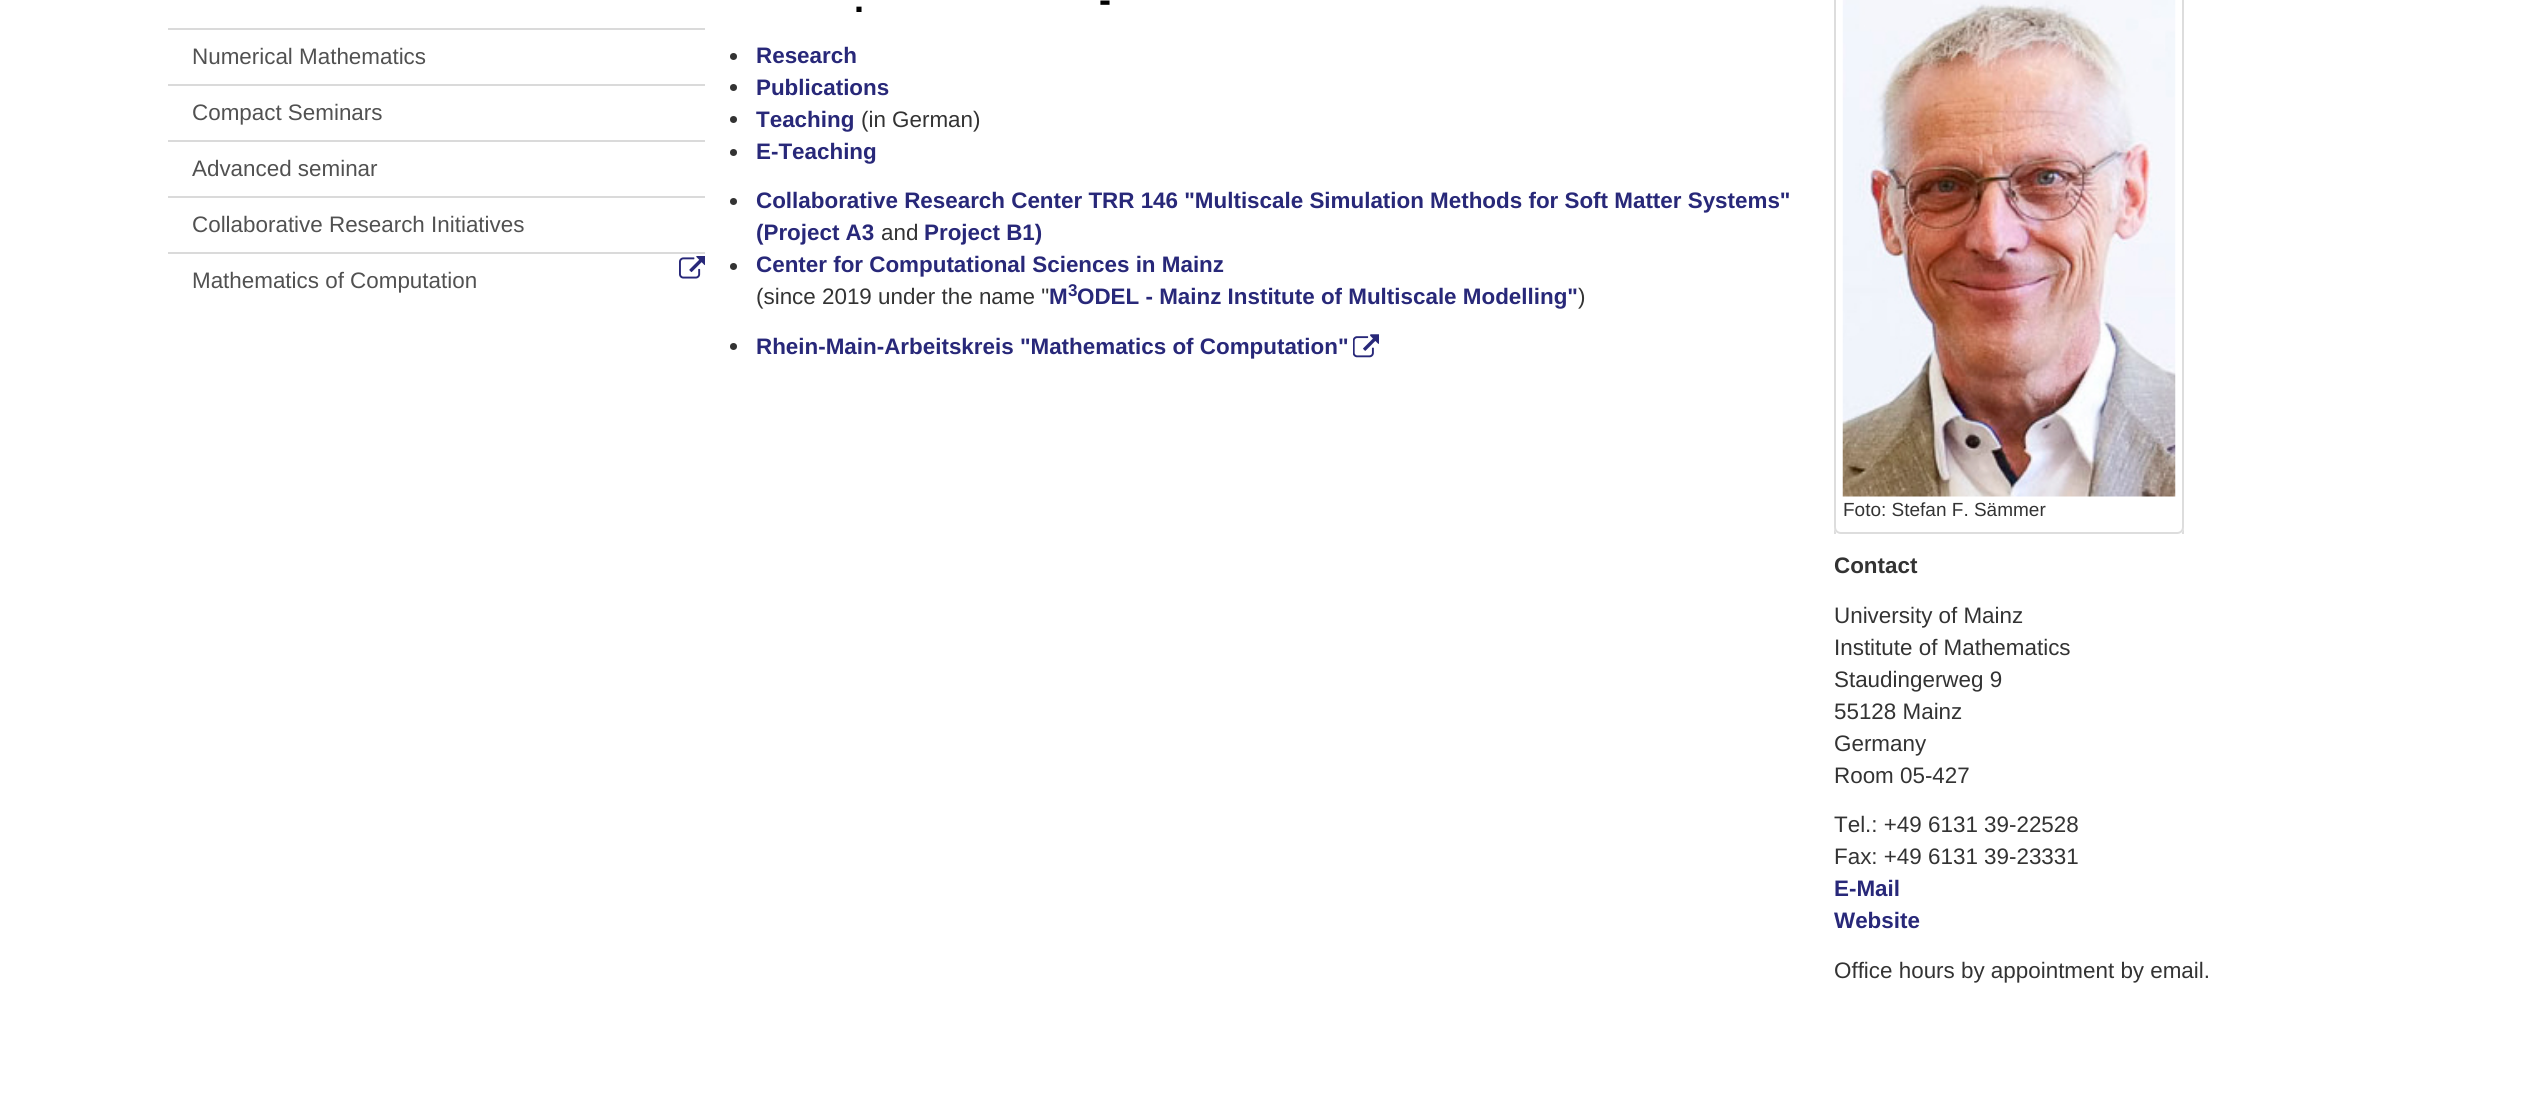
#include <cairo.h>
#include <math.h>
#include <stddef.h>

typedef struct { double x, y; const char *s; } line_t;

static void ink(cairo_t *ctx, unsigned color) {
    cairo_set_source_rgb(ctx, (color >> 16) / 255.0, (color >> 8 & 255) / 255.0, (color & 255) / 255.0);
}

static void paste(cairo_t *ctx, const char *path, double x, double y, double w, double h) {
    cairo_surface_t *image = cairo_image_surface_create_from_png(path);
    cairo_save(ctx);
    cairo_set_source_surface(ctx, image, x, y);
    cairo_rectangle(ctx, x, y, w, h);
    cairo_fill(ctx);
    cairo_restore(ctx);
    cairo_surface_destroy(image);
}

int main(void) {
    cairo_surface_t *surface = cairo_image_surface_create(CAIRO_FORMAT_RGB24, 2539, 1114);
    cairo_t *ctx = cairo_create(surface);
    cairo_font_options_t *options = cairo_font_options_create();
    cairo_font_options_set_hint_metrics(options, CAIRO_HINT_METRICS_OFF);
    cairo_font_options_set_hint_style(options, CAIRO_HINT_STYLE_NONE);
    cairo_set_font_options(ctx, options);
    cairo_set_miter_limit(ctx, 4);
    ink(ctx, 0xFFFFFF);
    cairo_paint(ctx);
    ink(ctx, 0xDADADA);
    cairo_rectangle(ctx, 168, 28, 537, 2);
    cairo_fill(ctx);
    cairo_select_font_face(ctx, "Liberation Sans", CAIRO_FONT_SLANT_NORMAL, CAIRO_FONT_WEIGHT_NORMAL);
    cairo_set_font_size(ctx, 22.4);
    ink(ctx, 0x515151);
    cairo_move_to(ctx, 192, 64);
    cairo_show_text(ctx, "Numerical Mathematics");
    ink(ctx, 0xDADADA);
    cairo_rectangle(ctx, 168, 84, 537, 2);
    cairo_fill(ctx);
    ink(ctx, 0x515151);
    cairo_move_to(ctx, 192, 120);
    cairo_show_text(ctx, "Compact Seminars");
    ink(ctx, 0xDADADA);
    cairo_rectangle(ctx, 168, 140, 537, 2);
    cairo_fill(ctx);
    ink(ctx, 0x515151);
    cairo_move_to(ctx, 192, 176);
    cairo_show_text(ctx, "Advanced seminar");
    ink(ctx, 0xDADADA);
    cairo_rectangle(ctx, 168, 196, 537, 2);
    cairo_fill(ctx);
    ink(ctx, 0x515151);
    cairo_move_to(ctx, 192, 232);
    cairo_show_text(ctx, "Collaborative Research Initiatives");
    ink(ctx, 0xDADADA);
    cairo_rectangle(ctx, 168, 252, 537, 2);
    cairo_fill(ctx);
    paste(ctx, "media/1.png", 679, 256, 26, 23);
    ink(ctx, 0x515151);
    cairo_move_to(ctx, 192, 288);
    cairo_show_text(ctx, "Mathematics of Computation");
    cairo_select_font_face(ctx, "Liberation Sans", CAIRO_FONT_SLANT_NORMAL, CAIRO_FONT_WEIGHT_BOLD);
    cairo_set_font_size(ctx, 36);
    ink(ctx, 0x000000);
    cairo_move_to(ctx, 1099, 12);
    cairo_show_text(ctx, "-");
    cairo_move_to(ctx, 854, 12);
    cairo_show_text(ctx, ".");
    ink(ctx, 0x333333);
    cairo_new_path(ctx);
    cairo_arc(ctx, 733.5, 56.5, 3.5, 0, 2 * M_PI);
    cairo_fill(ctx);
    cairo_set_font_size(ctx, 22.4);
    ink(ctx, 0x282879);
    cairo_move_to(ctx, 756, 63);
    cairo_show_text(ctx, "Research");
    ink(ctx, 0x333333);
    cairo_new_path(ctx);
    cairo_arc(ctx, 733.5, 87.5, 3.5, 0, 2 * M_PI);
    cairo_fill(ctx);
    ink(ctx, 0x282879);
    cairo_move_to(ctx, 756, 95);
    cairo_show_text(ctx, "Publications");
    ink(ctx, 0x333333);
    cairo_new_path(ctx);
    cairo_arc(ctx, 733.5, 119.5, 3.5, 0, 2 * M_PI);
    cairo_fill(ctx);
    ink(ctx, 0x282879);
    cairo_move_to(ctx, 756, 127);
    cairo_show_text(ctx, "Teaching");
    cairo_select_font_face(ctx, "Liberation Sans", CAIRO_FONT_SLANT_NORMAL, CAIRO_FONT_WEIGHT_NORMAL);
    ink(ctx, 0x333333);
    cairo_move_to(ctx, 861, 127);
    cairo_show_text(ctx, "(in German)");
    cairo_new_path(ctx);
    cairo_arc(ctx, 733.5, 152.5, 3.5, 0, 2 * M_PI);
    cairo_fill(ctx);
    cairo_select_font_face(ctx, "Liberation Sans", CAIRO_FONT_SLANT_NORMAL, CAIRO_FONT_WEIGHT_BOLD);
    ink(ctx, 0x282879);
    cairo_move_to(ctx, 756, 159);
    cairo_show_text(ctx, "E-Teaching");
    ink(ctx, 0x333333);
    cairo_new_path(ctx);
    cairo_arc(ctx, 733.5, 201.5, 3.5, 0, 2 * M_PI);
    cairo_fill(ctx);
    ink(ctx, 0x282879);
    cairo_move_to(ctx, 756, 208);
    cairo_show_text(ctx, "Collaborative Research Center TRR 146 \"Multiscale Simulation Methods for Soft Matter Systems\"");
    cairo_move_to(ctx, 756, 240);
    cairo_show_text(ctx, "(Project A3");
    cairo_select_font_face(ctx, "Liberation Sans", CAIRO_FONT_SLANT_NORMAL, CAIRO_FONT_WEIGHT_NORMAL);
    ink(ctx, 0x333333);
    cairo_move_to(ctx, 881, 240);
    cairo_show_text(ctx, "and");
    cairo_select_font_face(ctx, "Liberation Sans", CAIRO_FONT_SLANT_NORMAL, CAIRO_FONT_WEIGHT_BOLD);
    ink(ctx, 0x282879);
    cairo_move_to(ctx, 924, 240);
    cairo_show_text(ctx, "Project B1)");
    ink(ctx, 0x333333);
    cairo_new_path(ctx);
    cairo_arc(ctx, 733.5, 266.5, 3.5, 0, 2 * M_PI);
    cairo_fill(ctx);
    ink(ctx, 0x282879);
    cairo_move_to(ctx, 756, 272);
    cairo_show_text(ctx, "Center for Computational Sciences in Mainz");
    cairo_select_font_face(ctx, "Liberation Sans", CAIRO_FONT_SLANT_NORMAL, CAIRO_FONT_WEIGHT_NORMAL);
    ink(ctx, 0x333333);
    cairo_move_to(ctx, 756, 304);
    cairo_show_text(ctx, "(since 2019 under the name \"");
    cairo_select_font_face(ctx, "Liberation Sans", CAIRO_FONT_SLANT_NORMAL, CAIRO_FONT_WEIGHT_BOLD);
    ink(ctx, 0x282879);
    cairo_move_to(ctx, 1049, 304);
    cairo_show_text(ctx, "M");
    cairo_set_font_size(ctx, 17);
    cairo_move_to(ctx, 1068, 296);
    cairo_show_text(ctx, "3");
    cairo_set_font_size(ctx, 22.4);
    cairo_move_to(ctx, 1077, 304);
    cairo_show_text(ctx, "ODEL - Mainz Institute of Multiscale Modelling\"");
    cairo_select_font_face(ctx, "Liberation Sans", CAIRO_FONT_SLANT_NORMAL, CAIRO_FONT_WEIGHT_NORMAL);
    ink(ctx, 0x333333);
    cairo_move_to(ctx, 1578, 304);
    cairo_show_text(ctx, ")");
    cairo_new_path(ctx);
    cairo_arc(ctx, 733.5, 346.5, 3.5, 0, 2 * M_PI);
    cairo_fill(ctx);
    cairo_select_font_face(ctx, "Liberation Sans", CAIRO_FONT_SLANT_NORMAL, CAIRO_FONT_WEIGHT_BOLD);
    ink(ctx, 0x282879);
    cairo_move_to(ctx, 756, 354);
    cairo_show_text(ctx, "Rhein-Main-Arbeitskreis \"Mathematics of Computation\"");
    paste(ctx, "media/2.png", 1353, 334, 26, 24);
    ink(ctx, 0xDDDDDD);
    cairo_set_fill_rule(ctx, CAIRO_FILL_RULE_EVEN_ODD);
    cairo_new_path(ctx);
    cairo_move_to(ctx, 1841, -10);
    cairo_line_to(ctx, 2177, -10);
    cairo_curve_to(ctx, 2181, -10, 2184, -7, 2184, -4);
    cairo_line_to(ctx, 2184, 534);
    cairo_line_to(ctx, 1834, 534);
    cairo_line_to(ctx, 1834, -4);
    cairo_curve_to(ctx, 1834, -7, 1837, -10, 1841, -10);
    cairo_close_path(ctx);
    cairo_move_to(ctx, 1841, -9);
    cairo_line_to(ctx, 2177, -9);
    cairo_curve_to(ctx, 2180, -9, 2182, -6, 2182, -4);
    cairo_line_to(ctx, 2182, 534);
    cairo_line_to(ctx, 1836, 534);
    cairo_line_to(ctx, 1836, -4);
    cairo_curve_to(ctx, 1836, -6, 1838, -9, 1841, -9);
    cairo_close_path(ctx);
    cairo_fill(ctx);
    paste(ctx, "media/3.png", 1842, 0, 334, 497);
    ink(ctx, 0xFFFFFF);
    cairo_new_path(ctx);
    cairo_move_to(ctx, 1834, 497);
    cairo_line_to(ctx, 2184, 497);
    cairo_line_to(ctx, 2184, 527);
    cairo_curve_to(ctx, 2184, 531, 2181, 534, 2177, 534);
    cairo_line_to(ctx, 1841, 534);
    cairo_curve_to(ctx, 1837, 534, 1834, 531, 1834, 527);
    cairo_close_path(ctx);
    cairo_fill(ctx);
    ink(ctx, 0xDDDDDD);
    cairo_new_path(ctx);
    cairo_move_to(ctx, 1834, 497);
    cairo_line_to(ctx, 2184, 497);
    cairo_line_to(ctx, 2184, 527);
    cairo_curve_to(ctx, 2184, 531, 2181, 534, 2177, 534);
    cairo_line_to(ctx, 1841, 534);
    cairo_curve_to(ctx, 1837, 534, 1834, 531, 1834, 527);
    cairo_close_path(ctx);
    cairo_move_to(ctx, 1836, 497);
    cairo_line_to(ctx, 2182, 497);
    cairo_line_to(ctx, 2182, 527);
    cairo_curve_to(ctx, 2182, 530, 2180, 532, 2177, 532);
    cairo_line_to(ctx, 1841, 532);
    cairo_curve_to(ctx, 1838, 532, 1836, 530, 1836, 527);
    cairo_close_path(ctx);
    cairo_fill(ctx);
    cairo_select_font_face(ctx, "Liberation Sans", CAIRO_FONT_SLANT_NORMAL, CAIRO_FONT_WEIGHT_NORMAL);
    cairo_set_font_size(ctx, 19);
    ink(ctx, 0x333333);
    cairo_move_to(ctx, 1843, 516);
    cairo_show_text(ctx, "Foto: Stefan F. Sämmer");
    cairo_select_font_face(ctx, "Liberation Sans", CAIRO_FONT_SLANT_NORMAL, CAIRO_FONT_WEIGHT_BOLD);
    cairo_set_font_size(ctx, 22.4);
    cairo_move_to(ctx, 1834, 573);
    cairo_show_text(ctx, "Contact");
    cairo_select_font_face(ctx, "Liberation Sans", CAIRO_FONT_SLANT_NORMAL, CAIRO_FONT_WEIGHT_NORMAL);
    {
        static const line_t items[] = {
            {1834, 623, "University of Mainz"},
            {1834, 655, "Institute of Mathematics"},
            {1834, 687, "Staudingerweg 9"},
            {1834, 719, "55128 Mainz"},
            {1834, 751, "Germany"},
            {1834, 783, "Room 05-427"},
            {1834, 832, "Tel.: +49 6131 39-22528"},
            {1834, 864, "Fax: +49 6131 39-23331"},
        };
        for (size_t i = 0; i < sizeof items / sizeof *items; i++) {
            cairo_move_to(ctx, items[i].x, items[i].y);
            cairo_show_text(ctx, items[i].s);
        }
    }
    cairo_select_font_face(ctx, "Liberation Sans", CAIRO_FONT_SLANT_NORMAL, CAIRO_FONT_WEIGHT_BOLD);
    ink(ctx, 0x282879);
    cairo_move_to(ctx, 1834, 896);
    cairo_show_text(ctx, "E-Mail");
    cairo_move_to(ctx, 1834, 928);
    cairo_show_text(ctx, "Website");
    cairo_select_font_face(ctx, "Liberation Sans", CAIRO_FONT_SLANT_NORMAL, CAIRO_FONT_WEIGHT_NORMAL);
    ink(ctx, 0x333333);
    cairo_move_to(ctx, 1834, 978);
    cairo_show_text(ctx, "Office hours by appointment by email.");
    cairo_surface_write_to_png(surface, "image.png");
    cairo_font_options_destroy(options);
    cairo_destroy(ctx);
    cairo_surface_destroy(surface);
    return 0;
}
